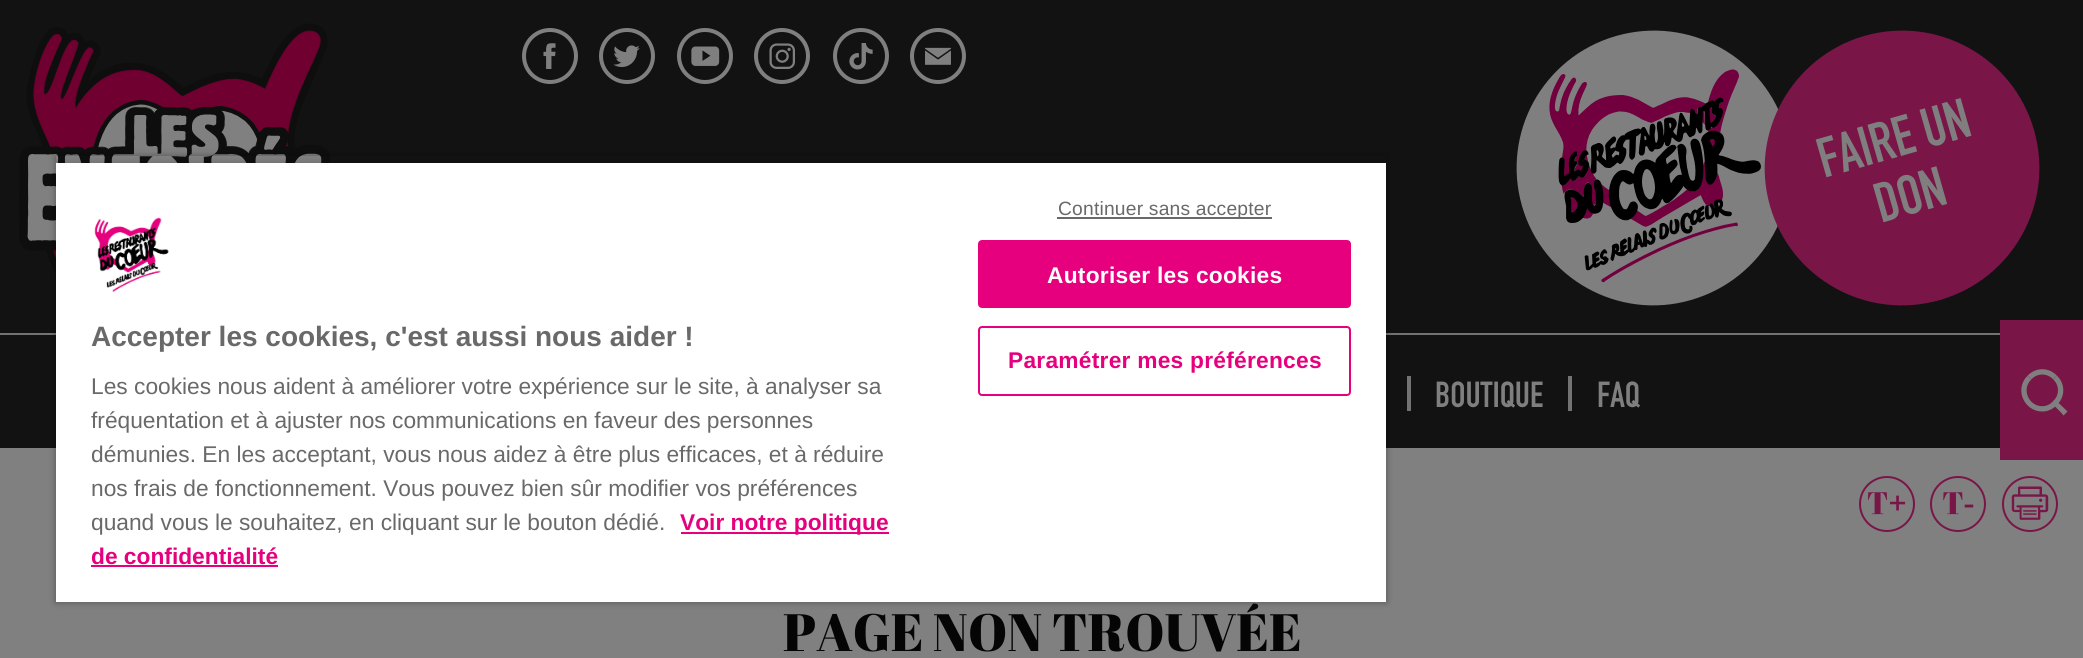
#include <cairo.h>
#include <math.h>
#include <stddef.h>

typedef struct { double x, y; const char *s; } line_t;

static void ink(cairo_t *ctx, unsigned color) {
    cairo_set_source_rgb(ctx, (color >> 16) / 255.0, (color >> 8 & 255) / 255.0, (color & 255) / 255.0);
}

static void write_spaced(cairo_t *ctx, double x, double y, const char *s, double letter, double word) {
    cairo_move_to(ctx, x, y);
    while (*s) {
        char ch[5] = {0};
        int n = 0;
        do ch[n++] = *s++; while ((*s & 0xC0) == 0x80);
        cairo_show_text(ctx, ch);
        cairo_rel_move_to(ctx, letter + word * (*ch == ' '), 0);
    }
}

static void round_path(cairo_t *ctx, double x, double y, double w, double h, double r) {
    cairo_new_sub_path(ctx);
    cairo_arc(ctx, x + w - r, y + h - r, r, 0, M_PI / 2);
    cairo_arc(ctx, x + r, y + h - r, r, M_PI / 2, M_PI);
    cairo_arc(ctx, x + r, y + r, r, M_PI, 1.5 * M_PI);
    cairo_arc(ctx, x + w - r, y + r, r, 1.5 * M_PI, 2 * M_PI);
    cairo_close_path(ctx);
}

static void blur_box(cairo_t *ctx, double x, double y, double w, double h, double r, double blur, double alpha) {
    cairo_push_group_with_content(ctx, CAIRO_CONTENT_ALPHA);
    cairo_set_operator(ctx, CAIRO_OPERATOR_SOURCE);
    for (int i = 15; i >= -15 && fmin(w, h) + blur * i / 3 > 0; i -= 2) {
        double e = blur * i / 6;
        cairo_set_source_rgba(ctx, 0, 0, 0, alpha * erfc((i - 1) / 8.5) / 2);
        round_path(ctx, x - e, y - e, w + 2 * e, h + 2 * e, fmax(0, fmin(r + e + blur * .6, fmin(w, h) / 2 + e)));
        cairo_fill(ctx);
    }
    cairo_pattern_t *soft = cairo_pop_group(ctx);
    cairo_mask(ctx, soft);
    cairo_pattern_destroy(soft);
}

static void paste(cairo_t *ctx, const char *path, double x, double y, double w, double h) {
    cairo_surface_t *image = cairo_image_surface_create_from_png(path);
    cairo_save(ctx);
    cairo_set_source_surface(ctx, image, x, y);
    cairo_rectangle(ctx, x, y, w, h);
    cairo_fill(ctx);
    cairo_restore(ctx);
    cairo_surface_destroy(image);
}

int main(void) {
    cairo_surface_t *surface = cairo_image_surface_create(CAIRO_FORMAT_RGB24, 2083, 658);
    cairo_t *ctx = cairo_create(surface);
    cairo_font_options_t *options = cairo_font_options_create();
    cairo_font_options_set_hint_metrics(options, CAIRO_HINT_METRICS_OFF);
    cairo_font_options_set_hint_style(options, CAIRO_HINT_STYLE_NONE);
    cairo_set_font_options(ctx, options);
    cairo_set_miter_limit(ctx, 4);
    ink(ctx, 0x808080);
    cairo_paint(ctx);
    ink(ctx, 0x121212);
    cairo_rectangle(ctx, 0, 0, 2083, 448);
    cairo_fill(ctx);
    paste(ctx, "media/2.png", 19, 23, 312, 251);
    ink(ctx, 0x737373);
    cairo_rectangle(ctx, 0, 333, 2000, 2);
    cairo_fill(ctx);
    cairo_save(ctx);
    cairo_set_fill_rule(ctx, CAIRO_FILL_RULE_EVEN_ODD);
    cairo_new_path(ctx);
    cairo_move_to(ctx, 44, 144);
    cairo_line_to(ctx, 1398, 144);
    cairo_line_to(ctx, 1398, 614);
    cairo_line_to(ctx, 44, 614);
    cairo_close_path(ctx);
    cairo_move_to(ctx, 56, 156);
    cairo_line_to(ctx, 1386, 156);
    cairo_line_to(ctx, 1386, 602);
    cairo_line_to(ctx, 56, 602);
    cairo_close_path(ctx);
    cairo_clip(ctx);
    ink(ctx, 0x000000);
    blur_box(ctx, 56, 156, 1330, 446, 0, 3.5, 0.35);
    cairo_restore(ctx);
    cairo_save(ctx);
    cairo_rectangle(ctx, 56, 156, 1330, 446);
    cairo_clip(ctx);
    ink(ctx, 0x000000);
    blur_box(ctx, 56, 163, 1330, 439, 0, 3.5, 0.2);
    cairo_restore(ctx);
    ink(ctx, 0xFFFFFF);
    cairo_rectangle(ctx, 56, 163, 1330, 439);
    cairo_fill(ctx);
    ink(ctx, 0x696969);
    cairo_rectangle(ctx, 1057, 217, 215, 2);
    cairo_fill(ctx);
    cairo_select_font_face(ctx, "Liberation Sans", CAIRO_FONT_SLANT_NORMAL, CAIRO_FONT_WEIGHT_NORMAL);
    cairo_set_font_size(ctx, 19.25);
    write_spaced(ctx, 1058, 215, "Continuer sans accepter", 0.2, 0);
    ink(ctx, 0xE6007E);
    round_path(ctx, 979, 241, 371, 66, 3);
    cairo_fill_preserve(ctx);
    cairo_stroke(ctx);
    cairo_select_font_face(ctx, "Liberation Sans", CAIRO_FONT_SLANT_NORMAL, CAIRO_FONT_WEIGHT_BOLD);
    cairo_set_font_size(ctx, 22.75);
    ink(ctx, 0xFFFFFF);
    write_spaced(ctx, 1047, 283, "Autoriser les cookies", 0.25, 0);
    round_path(ctx, 979, 327, 371, 68, 3);
    ink(ctx, 0xE6007E);
    cairo_stroke(ctx);
    write_spaced(ctx, 1008, 368, "Paramétrer mes préférences", 0.25, 0);
    paste(ctx, "media/1.png", 94, 217, 75, 75);
    cairo_set_font_size(ctx, 28);
    ink(ctx, 0x696969);
    cairo_move_to(ctx, 91, 346);
    cairo_show_text(ctx, "Accepter les cookies, c'est aussi nous aider !");
    cairo_select_font_face(ctx, "Liberation Sans", CAIRO_FONT_SLANT_NORMAL, CAIRO_FONT_WEIGHT_NORMAL);
    cairo_set_font_size(ctx, 22.75);
    {
        static const line_t items[] = {
            {91, 394, "Les cookies nous aident à améliorer votre expérience sur le site, à analyser sa"},
            {91, 428, "fréquentation et à ajuster nos communications en faveur des personnes"},
            {91, 462, "démunies. En les acceptant, vous nous aidez à être plus efficaces, et à réduire"},
            {91, 496, "nos frais de fonctionnement. Vous pouvez bien sûr modifier vos préférences"},
            {91, 530, "quand vous le souhaitez, en cliquant sur le bouton dédié."},
        };
        for (size_t i = 0; i < sizeof items / sizeof *items; i++) {
            cairo_move_to(ctx, items[i].x, items[i].y);
            cairo_show_text(ctx, items[i].s);
        }
    }
    ink(ctx, 0xE6007E);
    cairo_rectangle(ctx, 681, 532, 208, 2);
    cairo_fill(ctx);
    cairo_select_font_face(ctx, "Liberation Sans", CAIRO_FONT_SLANT_NORMAL, CAIRO_FONT_WEIGHT_BOLD);
    cairo_move_to(ctx, 680, 530);
    cairo_show_text(ctx, "Voir notre politique");
    cairo_move_to(ctx, 91, 564);
    cairo_show_text(ctx, "de confidentialité");
    cairo_rectangle(ctx, 91, 565, 187, 2);
    cairo_fill(ctx);
    cairo_arc(ctx, 550, 56, 26, 0, 2 * M_PI);
    ink(ctx, 0x7F7F7F);
    cairo_set_line_width(ctx, 4);
    cairo_stroke(ctx);
    paste(ctx, "media/3.png", 543, 43, 13, 26);
    cairo_arc(ctx, 627, 56, 26, 0, 2 * M_PI);
    cairo_stroke(ctx);
    paste(ctx, "media/4.png", 613, 45, 27, 22);
    cairo_arc(ctx, 705, 56, 26, 0, 2 * M_PI);
    cairo_stroke(ctx);
    paste(ctx, "media/5.png", 691, 46, 29, 20);
    cairo_arc(ctx, 782, 56, 26, 0, 2 * M_PI);
    cairo_stroke(ctx);
    paste(ctx, "media/6.png", 769, 43, 26, 26);
    cairo_arc(ctx, 861, 56, 26, 0, 2 * M_PI);
    cairo_stroke(ctx);
    paste(ctx, "media/7.png", 849, 43, 24, 27);
    cairo_arc(ctx, 938, 56, 26, 0, 2 * M_PI);
    cairo_stroke(ctx);
    paste(ctx, "media/8.png", 925, 47, 26, 18);
    cairo_new_path(ctx);
    cairo_move_to(ctx, 1616, 36);
    cairo_curve_to(ctx, 1689, 15, 1765, 57, 1786, 130);
    cairo_curve_to(ctx, 1806, 203, 1764, 279, 1691, 300);
    cairo_curve_to(ctx, 1619, 321, 1543, 279, 1522, 206);
    cairo_curve_to(ctx, 1501, 133, 1543, 57, 1616, 36);
    cairo_close_path(ctx);
    cairo_fill(ctx);
    paste(ctx, "media/9.png", 1549, 69, 212, 214);
    ink(ctx, 0x791647);
    cairo_new_path(ctx);
    cairo_move_to(ctx, 1864, 36);
    cairo_curve_to(ctx, 1937, 15, 2013, 57, 2034, 130);
    cairo_curve_to(ctx, 2055, 203, 2013, 279, 1940, 300);
    cairo_curve_to(ctx, 1867, 321, 1791, 279, 1770, 206);
    cairo_curve_to(ctx, 1749, 133, 1792, 57, 1864, 36);
    cairo_close_path(ctx);
    cairo_fill(ctx);
    cairo_select_font_face(ctx, "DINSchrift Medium", CAIRO_FONT_SLANT_NORMAL, CAIRO_FONT_WEIGHT_NORMAL);
    cairo_set_font_size(ctx, 54);
    ink(ctx, 0x7F7F7F);
    cairo_save(ctx);
    cairo_translate(ctx, 1824, 178);
    cairo_rotate(ctx, -16 * M_PI / 180);
    cairo_move_to(ctx, 0, 0);
    cairo_show_text(ctx, "FAIRE UN");
    cairo_restore(ctx);
    cairo_save(ctx);
    cairo_translate(ctx, 1881, 223);
    cairo_rotate(ctx, -16 * M_PI / 180);
    cairo_move_to(ctx, 0, 0);
    cairo_show_text(ctx, "DON");
    cairo_restore(ctx);
    ink(ctx, 0x737373);
    cairo_rectangle(ctx, 1407, 376, 4, 35);
    cairo_fill(ctx);
    cairo_rectangle(ctx, 1568, 376, 4, 35);
    cairo_fill(ctx);
    cairo_set_font_size(ctx, 35);
    ink(ctx, 0x7F7F7F);
    cairo_move_to(ctx, 1435, 407);
    cairo_show_text(ctx, "BOUTIQUE");
    cairo_move_to(ctx, 1597, 407);
    cairo_show_text(ctx, "FAQ");
    ink(ctx, 0x791647);
    cairo_rectangle(ctx, 2000, 320, 83, 140);
    cairo_fill(ctx);
    cairo_save(ctx);
    cairo_new_path(ctx);
    cairo_move_to(ctx, 2012.5, 390);
    cairo_line_to(ctx, 2027.5, 375.5);
    cairo_line_to(ctx, 2057, 405);
    cairo_line_to(ctx, 2042, 420);
    cairo_close_path(ctx);
    cairo_clip(ctx);
    cairo_new_path(ctx);
    cairo_move_to(ctx, 2055, 403);
    cairo_curve_to(ctx, 2052.5, 406, 2049.5, 407.5, 2046, 408.5);
    cairo_curve_to(ctx, 2028, 412, 2016.5, 390, 2029.5, 377.5);
    ink(ctx, 0x7F7F7F);
    cairo_set_line_width(ctx, 5.3);
    cairo_stroke(ctx);
    cairo_restore(ctx);
    cairo_save(ctx);
    cairo_new_path(ctx);
    cairo_move_to(ctx, 2027.5, 375.5);
    cairo_line_to(ctx, 2042, 360.5);
    cairo_line_to(ctx, 2057, 375.5);
    cairo_line_to(ctx, 2042, 390);
    cairo_close_path(ctx);
    cairo_clip(ctx);
    cairo_new_path(ctx);
    cairo_move_to(ctx, 2029.5, 377.5);
    cairo_curve_to(ctx, 2036.5, 370, 2048, 370, 2055, 377.5);
    ink(ctx, 0x7F7F7F);
    cairo_set_line_width(ctx, 5.3);
    cairo_stroke(ctx);
    cairo_restore(ctx);
    cairo_save(ctx);
    cairo_new_path(ctx);
    cairo_move_to(ctx, 2042, 390);
    cairo_line_to(ctx, 2057, 375.5);
    cairo_line_to(ctx, 2072, 390);
    cairo_line_to(ctx, 2057, 405);
    cairo_close_path(ctx);
    cairo_clip(ctx);
    cairo_new_path(ctx);
    cairo_move_to(ctx, 2055, 377.5);
    cairo_curve_to(ctx, 2062.5, 384.5, 2062.5, 396, 2055, 403);
    ink(ctx, 0x7F7F7F);
    cairo_set_line_width(ctx, 5.3);
    cairo_stroke(ctx);
    cairo_restore(ctx);
    ink(ctx, 0x7F7F7F);
    cairo_new_path(ctx);
    cairo_move_to(ctx, 2051.5, 403);
    cairo_line_to(ctx, 2055, 399.5);
    cairo_line_to(ctx, 2067.5, 411.5);
    cairo_line_to(ctx, 2063.5, 415.5);
    cairo_line_to(ctx, 2061, 412.5);
    cairo_close_path(ctx);
    cairo_fill(ctx);
    cairo_arc(ctx, 1887, 504, 27, 0, 2 * M_PI);
    ink(ctx, 0x791647);
    cairo_set_line_width(ctx, 2);
    cairo_stroke(ctx);
    paste(ctx, "media/10.png", 1867, 492, 39, 23);
    cairo_arc(ctx, 1958, 504, 27, 0, 2 * M_PI);
    cairo_stroke(ctx);
    paste(ctx, "media/11.png", 1943, 492, 31, 23);
    cairo_arc(ctx, 2030, 504, 27, 0, 2 * M_PI);
    cairo_stroke(ctx);
    paste(ctx, "media/12.png", 2011, 486, 38, 34);
    cairo_select_font_face(ctx, "Abril Fatface", CAIRO_FONT_SLANT_NORMAL, CAIRO_FONT_WEIGHT_NORMAL);
    cairo_set_font_size(ctx, 52.5);
    ink(ctx, 0x050505);
    cairo_move_to(ctx, 783, 651);
    cairo_show_text(ctx, "PAGE NON TROUVÉE");
    cairo_surface_write_to_png(surface, "image.png");
    cairo_font_options_destroy(options);
    cairo_destroy(ctx);
    cairo_surface_destroy(surface);
    return 0;
}
